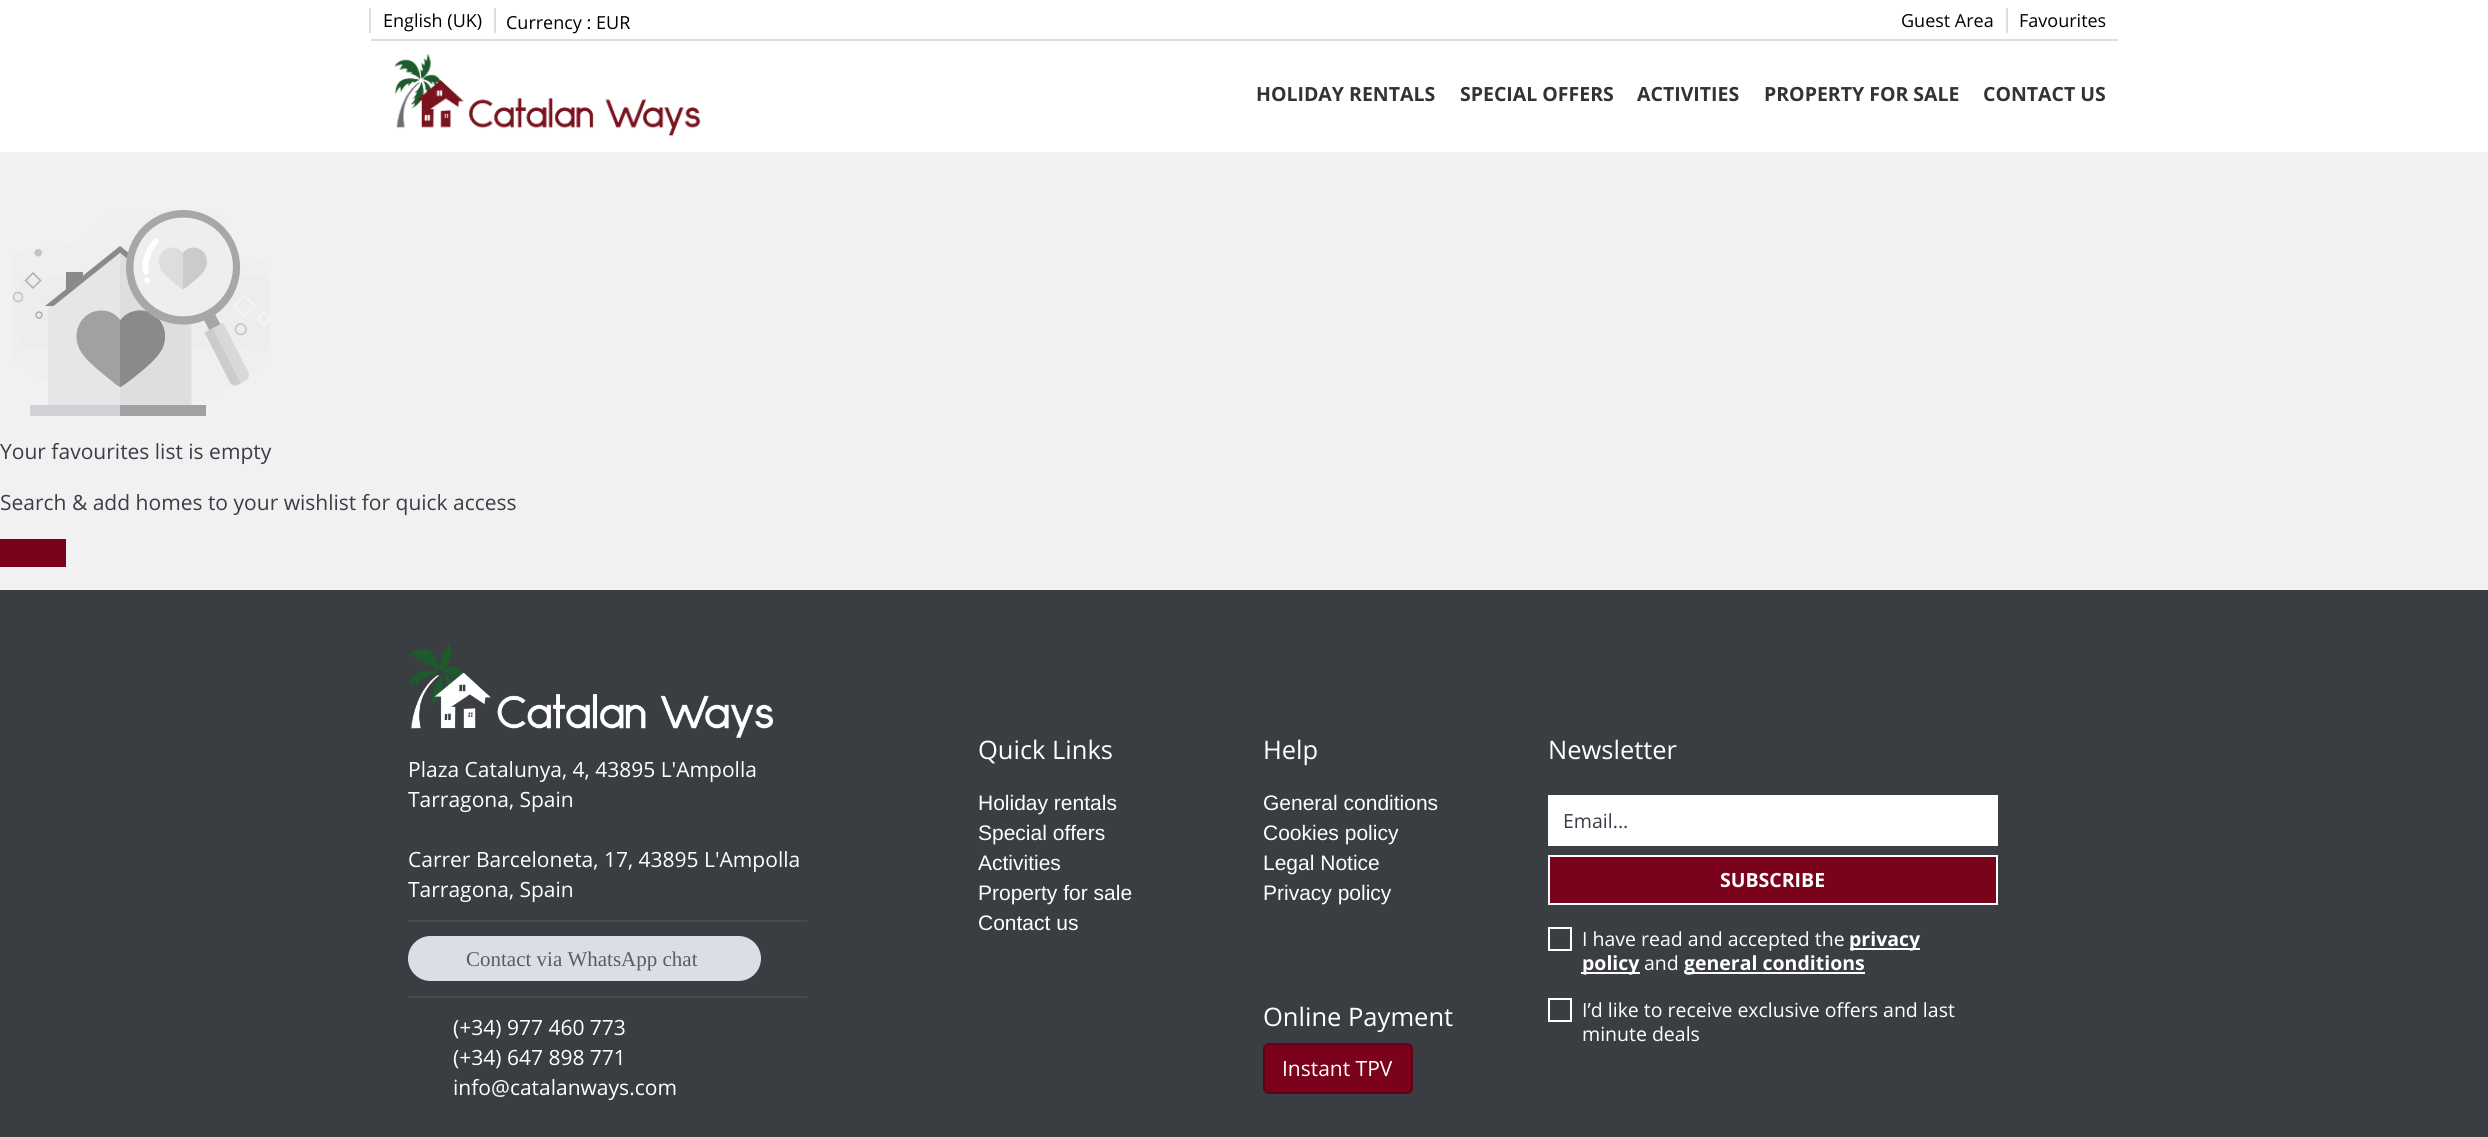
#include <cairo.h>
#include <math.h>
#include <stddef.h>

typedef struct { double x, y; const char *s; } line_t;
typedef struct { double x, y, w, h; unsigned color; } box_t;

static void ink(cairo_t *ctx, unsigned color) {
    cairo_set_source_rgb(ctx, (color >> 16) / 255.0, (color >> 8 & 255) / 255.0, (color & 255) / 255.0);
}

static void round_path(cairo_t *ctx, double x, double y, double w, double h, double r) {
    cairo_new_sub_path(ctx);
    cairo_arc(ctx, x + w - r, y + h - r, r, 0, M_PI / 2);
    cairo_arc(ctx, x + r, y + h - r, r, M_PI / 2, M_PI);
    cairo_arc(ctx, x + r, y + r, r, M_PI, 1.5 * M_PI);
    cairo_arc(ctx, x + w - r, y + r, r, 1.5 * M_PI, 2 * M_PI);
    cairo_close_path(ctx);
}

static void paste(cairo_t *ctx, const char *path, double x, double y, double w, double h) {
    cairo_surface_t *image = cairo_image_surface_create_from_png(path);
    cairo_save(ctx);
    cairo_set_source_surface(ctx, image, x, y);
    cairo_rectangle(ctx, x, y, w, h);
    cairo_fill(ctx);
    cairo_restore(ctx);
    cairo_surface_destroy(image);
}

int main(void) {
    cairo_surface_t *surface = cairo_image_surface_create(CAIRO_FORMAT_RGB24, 2488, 1137);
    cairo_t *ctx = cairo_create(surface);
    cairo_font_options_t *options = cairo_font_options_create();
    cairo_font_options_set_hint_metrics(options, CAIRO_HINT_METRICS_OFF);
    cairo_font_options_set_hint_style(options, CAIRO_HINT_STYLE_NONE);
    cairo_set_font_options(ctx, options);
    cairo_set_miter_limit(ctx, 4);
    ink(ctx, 0xF1F1F1);
    cairo_paint(ctx);
    {
        static const box_t items[] = {
            {0, 0, 2488, 152, 0xFFFFFF},
            {371, 39, 1747, 2, 0xDADFE2},
            {369, 8, 2, 25, 0xDADFE2},
        };
        for (size_t i = 0; i < sizeof items / sizeof *items; i++) {
            ink(ctx, items[i].color);
            cairo_rectangle(ctx, items[i].x, items[i].y, items[i].w, items[i].h);
            cairo_fill(ctx);
        }
    }
    cairo_select_font_face(ctx, "Open Sans", CAIRO_FONT_SLANT_NORMAL, CAIRO_FONT_WEIGHT_NORMAL);
    cairo_set_font_size(ctx, 18);
    ink(ctx, 0x000000);
    cairo_move_to(ctx, 383, 27);
    cairo_show_text(ctx, "English (UK)");
    ink(ctx, 0xDADFE2);
    cairo_rectangle(ctx, 494, 8, 2, 25);
    cairo_fill(ctx);
    ink(ctx, 0x000000);
    cairo_move_to(ctx, 506, 29);
    cairo_show_text(ctx, "Currency : EUR");
    cairo_move_to(ctx, 1901, 27);
    cairo_show_text(ctx, "Guest Area");
    ink(ctx, 0xDADFE2);
    cairo_rectangle(ctx, 2006, 8, 2, 25);
    cairo_fill(ctx);
    ink(ctx, 0x000000);
    cairo_move_to(ctx, 2019, 27);
    cairo_show_text(ctx, "Favourites");
    paste(ctx, "media/1.png", 394, 54, 307, 82);
    cairo_select_font_face(ctx, "Open Sans", CAIRO_FONT_SLANT_NORMAL, CAIRO_FONT_WEIGHT_BOLD);
    cairo_set_font_size(ctx, 19.5);
    ink(ctx, 0x333333);
    {
        static const line_t items[] = {
            {1256, 101, "HOLIDAY RENTALS"},
            {1460, 101, "SPECIAL OFFERS"},
            {1637, 101, "ACTIVITIES"},
            {1764, 101, "PROPERTY FOR SALE"},
            {1983, 101, "CONTACT US"},
        };
        for (size_t i = 0; i < sizeof items / sizeof *items; i++) {
            cairo_move_to(ctx, items[i].x, items[i].y);
            cairo_show_text(ctx, items[i].s);
        }
    }
    paste(ctx, "media/2.png", 12, 210, 258, 206);
    cairo_select_font_face(ctx, "Open Sans", CAIRO_FONT_SLANT_NORMAL, CAIRO_FONT_WEIGHT_NORMAL);
    cairo_set_font_size(ctx, 21);
    ink(ctx, 0x393E47);
    cairo_move_to(ctx, 0, 459);
    cairo_show_text(ctx, "Your favourites list is empty");
    cairo_move_to(ctx, 0, 510);
    cairo_show_text(ctx, "Search & add homes to your wishlist for quick access");
    ink(ctx, 0x7A021A);
    cairo_rectangle(ctx, 0, 539, 66, 28);
    cairo_fill(ctx);
    ink(ctx, 0x3A3D42);
    cairo_rectangle(ctx, 0, 590, 2488, 547);
    cairo_fill(ctx);
    paste(ctx, "media/3.png", 408, 642, 365, 96);
    ink(ctx, 0xFFFFFF);
    {
        static const line_t items[] = {
            {408, 777, "Plaza Catalunya, 4, 43895 L'Ampolla"},
            {408, 807, "Tarragona, Spain"},
            {408, 867, "Carrer Barceloneta, 17, 43895 L'Ampolla"},
            {408, 897, "Tarragona, Spain"},
        };
        for (size_t i = 0; i < sizeof items / sizeof *items; i++) {
            cairo_move_to(ctx, items[i].x, items[i].y);
            cairo_show_text(ctx, items[i].s);
        }
    }
    ink(ctx, 0x46494D);
    cairo_rectangle(ctx, 408, 920, 399, 2);
    cairo_fill(ctx);
    ink(ctx, 0xDBDFE5);
    round_path(ctx, 408, 936, 353, 45, 22.5);
    cairo_fill(ctx);
    cairo_select_font_face(ctx, "Liberation Serif", CAIRO_FONT_SLANT_NORMAL, CAIRO_FONT_WEIGHT_NORMAL);
    ink(ctx, 0x5C5C5C);
    cairo_move_to(ctx, 466, 966);
    cairo_show_text(ctx, "Contact via WhatsApp chat");
    ink(ctx, 0x46494D);
    cairo_rectangle(ctx, 408, 996, 399, 2);
    cairo_fill(ctx);
    cairo_select_font_face(ctx, "Open Sans", CAIRO_FONT_SLANT_NORMAL, CAIRO_FONT_WEIGHT_NORMAL);
    ink(ctx, 0xFFFFFF);
    {
        static const line_t items[] = {
            {453, 1035, "(+34) 977 460 773"},
            {453, 1065, "(+34) 647 898 771"},
            {453, 1095, "info@catalanways.com"},
        };
        for (size_t i = 0; i < sizeof items / sizeof *items; i++) {
            cairo_move_to(ctx, items[i].x, items[i].y);
            cairo_show_text(ctx, items[i].s);
        }
    }
    cairo_set_font_size(ctx, 25.5);
    cairo_move_to(ctx, 978, 759);
    cairo_show_text(ctx, "Quick Links");
    cairo_select_font_face(ctx, "Liberation Sans", CAIRO_FONT_SLANT_NORMAL, CAIRO_FONT_WEIGHT_NORMAL);
    cairo_set_font_size(ctx, 21);
    {
        static const line_t items[] = {
            {978, 810, "Holiday rentals"},
            {978, 840, "Special offers"},
            {978, 870, "Activities"},
            {978, 900, "Property for sale"},
            {978, 930, "Contact us"},
        };
        for (size_t i = 0; i < sizeof items / sizeof *items; i++) {
            cairo_move_to(ctx, items[i].x, items[i].y);
            cairo_show_text(ctx, items[i].s);
        }
    }
    cairo_select_font_face(ctx, "Open Sans", CAIRO_FONT_SLANT_NORMAL, CAIRO_FONT_WEIGHT_NORMAL);
    cairo_set_font_size(ctx, 25.5);
    cairo_move_to(ctx, 1263, 759);
    cairo_show_text(ctx, "Help");
    cairo_select_font_face(ctx, "Liberation Sans", CAIRO_FONT_SLANT_NORMAL, CAIRO_FONT_WEIGHT_NORMAL);
    cairo_set_font_size(ctx, 21);
    {
        static const line_t items[] = {
            {1263, 810, "General conditions"},
            {1263, 840, "Cookies policy"},
            {1263, 870, "Legal Notice"},
            {1263, 900, "Privacy policy"},
        };
        for (size_t i = 0; i < sizeof items / sizeof *items; i++) {
            cairo_move_to(ctx, items[i].x, items[i].y);
            cairo_show_text(ctx, items[i].s);
        }
    }
    cairo_select_font_face(ctx, "Open Sans", CAIRO_FONT_SLANT_NORMAL, CAIRO_FONT_WEIGHT_NORMAL);
    cairo_set_font_size(ctx, 25.5);
    cairo_move_to(ctx, 1263, 1026);
    cairo_show_text(ctx, "Online Payment");
    ink(ctx, 0x7A021A);
    round_path(ctx, 1264, 1044, 148, 49, 5);
    cairo_fill_preserve(ctx);
    ink(ctx, 0x610215);
    cairo_stroke(ctx);
    cairo_set_font_size(ctx, 21);
    ink(ctx, 0xFFFFFF);
    cairo_move_to(ctx, 1282, 1076);
    cairo_show_text(ctx, "Instant TPV");
    cairo_set_font_size(ctx, 25.5);
    cairo_move_to(ctx, 1548, 759);
    cairo_show_text(ctx, "Newsletter");
    cairo_rectangle(ctx, 1548, 795, 450, 51);
    cairo_fill(ctx);
    cairo_set_font_size(ctx, 19.5);
    ink(ctx, 0x393E47);
    cairo_move_to(ctx, 1563, 828);
    cairo_show_text(ctx, "Email...");
    ink(ctx, 0x7A021A);
    cairo_rectangle(ctx, 1549, 856, 448, 48);
    cairo_fill_preserve(ctx);
    ink(ctx, 0xFFFFFF);
    cairo_stroke(ctx);
    cairo_select_font_face(ctx, "Open Sans", CAIRO_FONT_SLANT_NORMAL, CAIRO_FONT_WEIGHT_BOLD);
    cairo_move_to(ctx, 1720, 887);
    cairo_show_text(ctx, "SUBSCRIBE");
    cairo_rectangle(ctx, 1549, 928, 22, 22);
    cairo_stroke(ctx);
    cairo_select_font_face(ctx, "Open Sans", CAIRO_FONT_SLANT_NORMAL, CAIRO_FONT_WEIGHT_NORMAL);
    cairo_move_to(ctx, 1582, 946);
    cairo_show_text(ctx, "I have read and accepted the");
    cairo_rectangle(ctx, 1850, 948, 70, 2);
    cairo_fill(ctx);
    cairo_select_font_face(ctx, "Open Sans", CAIRO_FONT_SLANT_NORMAL, CAIRO_FONT_WEIGHT_BOLD);
    cairo_move_to(ctx, 1849, 946);
    cairo_show_text(ctx, "privacy");
    cairo_rectangle(ctx, 1581, 972, 59, 2);
    cairo_fill(ctx);
    cairo_move_to(ctx, 1582, 970);
    cairo_show_text(ctx, "policy");
    cairo_select_font_face(ctx, "Open Sans", CAIRO_FONT_SLANT_NORMAL, CAIRO_FONT_WEIGHT_NORMAL);
    cairo_move_to(ctx, 1644, 970);
    cairo_show_text(ctx, "and");
    cairo_rectangle(ctx, 1685, 972, 180, 2);
    cairo_fill(ctx);
    cairo_select_font_face(ctx, "Open Sans", CAIRO_FONT_SLANT_NORMAL, CAIRO_FONT_WEIGHT_BOLD);
    cairo_move_to(ctx, 1684, 970);
    cairo_show_text(ctx, "general conditions");
    cairo_rectangle(ctx, 1549, 999, 22, 22);
    cairo_stroke(ctx);
    cairo_select_font_face(ctx, "Open Sans", CAIRO_FONT_SLANT_NORMAL, CAIRO_FONT_WEIGHT_NORMAL);
    cairo_move_to(ctx, 1582, 1017);
    cairo_show_text(ctx, "I’d like to receive exclusive offers and last");
    cairo_move_to(ctx, 1582, 1041);
    cairo_show_text(ctx, "minute deals");
    cairo_surface_write_to_png(surface, "image.png");
    cairo_font_options_destroy(options);
    cairo_destroy(ctx);
    cairo_surface_destroy(surface);
    return 0;
}
